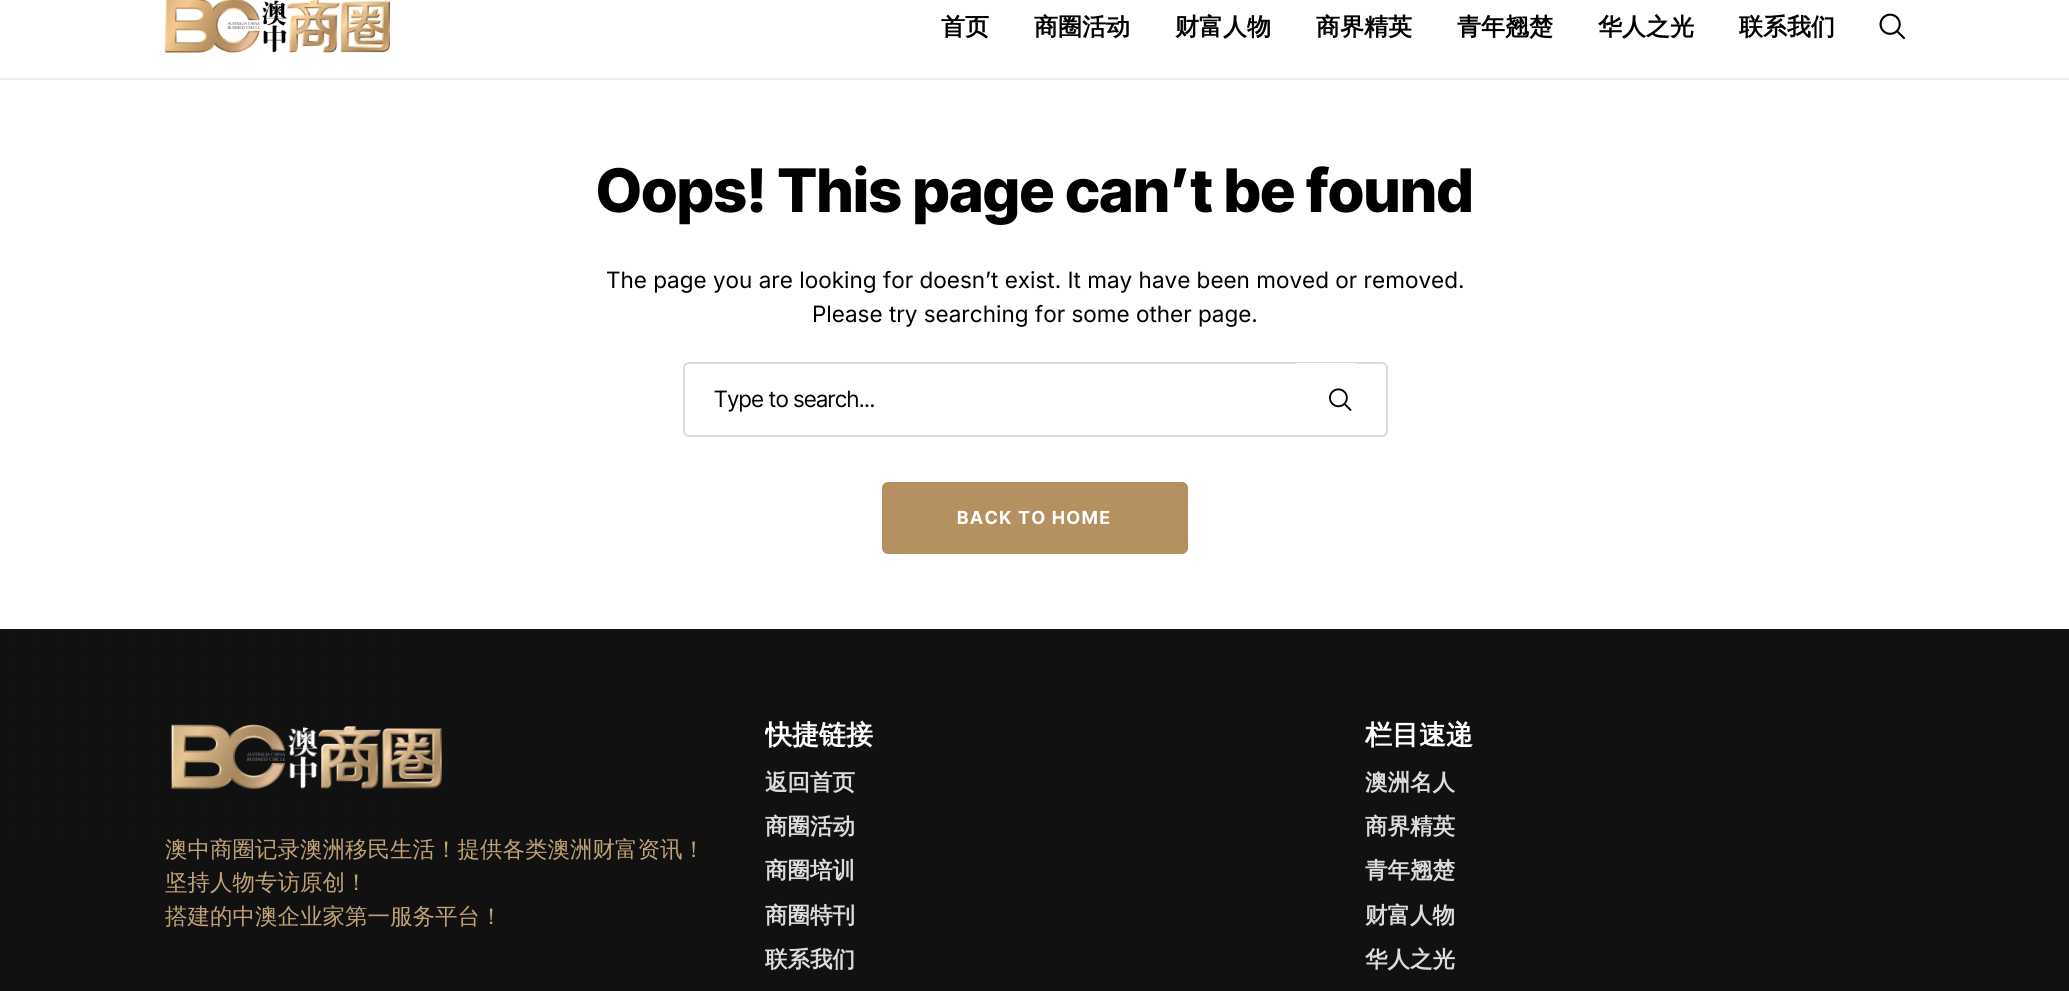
#include <cairo.h>
#include <math.h>
#include <stddef.h>

typedef struct { double x, y; const char *s; } line_t;

static void ink(cairo_t *ctx, unsigned color) {
    cairo_set_source_rgb(ctx, (color >> 16) / 255.0, (color >> 8 & 255) / 255.0, (color & 255) / 255.0);
}

static void write_spaced(cairo_t *ctx, double x, double y, const char *s, double letter, double word) {
    cairo_move_to(ctx, x, y);
    while (*s) {
        char ch[5] = {0};
        int n = 0;
        do ch[n++] = *s++; while ((*s & 0xC0) == 0x80);
        cairo_show_text(ctx, ch);
        cairo_rel_move_to(ctx, letter + word * (*ch == ' '), 0);
    }
}

static void round_path(cairo_t *ctx, double x, double y, double w, double h, double r) {
    cairo_new_sub_path(ctx);
    cairo_arc(ctx, x + w - r, y + h - r, r, 0, M_PI / 2);
    cairo_arc(ctx, x + r, y + h - r, r, M_PI / 2, M_PI);
    cairo_arc(ctx, x + r, y + r, r, M_PI, 1.5 * M_PI);
    cairo_arc(ctx, x + w - r, y + r, r, 1.5 * M_PI, 2 * M_PI);
    cairo_close_path(ctx);
}

static void paste(cairo_t *ctx, const char *path, double x, double y, double w, double h) {
    cairo_surface_t *image = cairo_image_surface_create_from_png(path);
    cairo_save(ctx);
    cairo_set_source_surface(ctx, image, x, y);
    cairo_rectangle(ctx, x, y, w, h);
    cairo_fill(ctx);
    cairo_restore(ctx);
    cairo_surface_destroy(image);
}

int main(void) {
    cairo_surface_t *surface = cairo_image_surface_create(CAIRO_FORMAT_RGB24, 2069, 991);
    cairo_t *ctx = cairo_create(surface);
    cairo_font_options_t *options = cairo_font_options_create();
    cairo_font_options_set_hint_metrics(options, CAIRO_HINT_METRICS_OFF);
    cairo_font_options_set_hint_style(options, CAIRO_HINT_STYLE_NONE);
    cairo_set_font_options(ctx, options);
    cairo_set_miter_limit(ctx, 4);
    ink(ctx, 0xFFFFFF);
    cairo_paint(ctx);
    ink(ctx, 0xEEEDEB);
    cairo_rectangle(ctx, 0, 78, 2069, 2);
    cairo_fill(ctx);
    paste(ctx, "media/1.png", 165, 0, 225, 53);
    cairo_select_font_face(ctx, "WenQuanYi Zen Hei", CAIRO_FONT_SLANT_NORMAL, CAIRO_FONT_WEIGHT_BOLD);
    cairo_set_font_size(ctx, 24);
    ink(ctx, 0x000000);
    {
        static const line_t items[] = {
            {941, 35, "首页"},
            {1034, 35, "商圈活动"},
            {1175, 35, "财富人物"},
            {1316, 35, "商界精英"},
            {1457, 35, "青年翘楚"},
            {1598, 35, "华人之光"},
            {1739, 35, "联系我们"},
        };
        for (size_t i = 0; i < sizeof items / sizeof *items; i++) {
            cairo_move_to(ctx, items[i].x, items[i].y);
            cairo_show_text(ctx, items[i].s);
        }
    }
    paste(ctx, "media/2.png", 1879, 13, 26, 27);
    cairo_select_font_face(ctx, "Inter Tight ExtraBold", CAIRO_FONT_SLANT_NORMAL, CAIRO_FONT_WEIGHT_NORMAL);
    cairo_set_font_size(ctx, 60);
    cairo_move_to(ctx, 596, 212);
    cairo_show_text(ctx, "Oops! This page can’t be found");
    cairo_select_font_face(ctx, "Inter", CAIRO_FONT_SLANT_NORMAL, CAIRO_FONT_WEIGHT_NORMAL);
    cairo_set_font_size(ctx, 22.5);
    cairo_move_to(ctx, 606, 288);
    cairo_show_text(ctx, "The page you are looking for doesn’t exist. It may have been moved or removed.");
    cairo_move_to(ctx, 812, 322);
    cairo_show_text(ctx, "Please try searching for some other page.");
    round_path(ctx, 684, 363, 703, 73, 5);
    ink(ctx, 0xDBDBDB);
    cairo_stroke(ctx);
    cairo_select_font_face(ctx, "Inter Tight", CAIRO_FONT_SLANT_NORMAL, CAIRO_FONT_WEIGHT_NORMAL);
    ink(ctx, 0x000000);
    cairo_move_to(ctx, 714, 407);
    cairo_show_text(ctx, "Type to search...");
    ink(ctx, 0xFFFFFF);
    cairo_new_path(ctx);
    cairo_move_to(ctx, 1296, 363);
    cairo_line_to(ctx, 1350, 363);
    cairo_curve_to(ctx, 1370, 363, 1386, 379, 1386, 399);
    cairo_curve_to(ctx, 1386, 419, 1370, 435, 1350, 435);
    cairo_line_to(ctx, 1296, 435);
    cairo_close_path(ctx);
    cairo_fill(ctx);
    paste(ctx, "media/3.png", 1329, 388, 23, 23);
    ink(ctx, 0xB59061);
    round_path(ctx, 882, 482, 306, 72, 6);
    cairo_fill(ctx);
    cairo_select_font_face(ctx, "Inter Tight", CAIRO_FONT_SLANT_NORMAL, CAIRO_FONT_WEIGHT_BOLD);
    cairo_set_font_size(ctx, 18);
    ink(ctx, 0xFFFFFF);
    write_spaced(ctx, 957, 524, "BACK TO HOME", 1.75, 0);
    ink(ctx, 0x111111);
    cairo_rectangle(ctx, 0, 629, 2069, 362);
    cairo_fill(ctx);
    cairo_new_path(ctx);
    cairo_move_to(ctx, 12, 640.5);
    cairo_line_to(ctx, 396.3, 640.5);
    ink(ctx, 0x161616);
    cairo_set_line_width(ctx, 2.2);
    cairo_set_line_cap(ctx, CAIRO_LINE_CAP_ROUND);
    cairo_set_dash(ctx, (double[]){0, 24}, 2, 0);
    cairo_stroke(ctx);
    cairo_new_path(ctx);
    cairo_move_to(ctx, 12, 664.5);
    cairo_line_to(ctx, 396.3, 664.5);
    cairo_stroke(ctx);
    cairo_new_path(ctx);
    cairo_move_to(ctx, 12, 688.5);
    cairo_line_to(ctx, 396.3, 688.5);
    cairo_stroke(ctx);
    cairo_new_path(ctx);
    cairo_move_to(ctx, 12, 712.5);
    cairo_line_to(ctx, 396.3, 712.5);
    cairo_stroke(ctx);
    cairo_new_path(ctx);
    cairo_move_to(ctx, 12, 736.5);
    cairo_line_to(ctx, 396.3, 736.5);
    cairo_stroke(ctx);
    cairo_new_path(ctx);
    cairo_move_to(ctx, 12, 760.5);
    cairo_line_to(ctx, 396.3, 760.5);
    cairo_stroke(ctx);
    cairo_new_path(ctx);
    cairo_move_to(ctx, 12, 784.5);
    cairo_line_to(ctx, 396.3, 784.5);
    cairo_stroke(ctx);
    cairo_new_path(ctx);
    cairo_move_to(ctx, 12, 808.5);
    cairo_line_to(ctx, 396.3, 808.5);
    cairo_stroke(ctx);
    cairo_new_path(ctx);
    cairo_move_to(ctx, 12, 832.5);
    cairo_line_to(ctx, 396.3, 832.5);
    cairo_stroke(ctx);
    paste(ctx, "media/4.png", 171, 724, 271, 66);
    cairo_select_font_face(ctx, "WenQuanYi Zen Hei Medium", CAIRO_FONT_SLANT_NORMAL, CAIRO_FONT_WEIGHT_NORMAL);
    cairo_set_font_size(ctx, 22.5);
    ink(ctx, 0xC2A277);
    {
        static const line_t items[] = {
            {165, 857, "澳中商圈记录澳洲移民生活！提供各类澳洲财富资讯！"},
            {165, 890, "坚持人物专访原创！"},
            {165, 924, "搭建的中澳企业家第一服务平台！"},
        };
        for (size_t i = 0; i < sizeof items / sizeof *items; i++) {
            cairo_move_to(ctx, items[i].x, items[i].y);
            cairo_show_text(ctx, items[i].s);
        }
    }
    cairo_save(ctx);
    cairo_rectangle(ctx, 765, 719, 540, 258);
    cairo_clip(ctx);
    cairo_select_font_face(ctx, "WenQuanYi Zen Hei", CAIRO_FONT_SLANT_NORMAL, CAIRO_FONT_WEIGHT_BOLD);
    cairo_set_font_size(ctx, 27);
    ink(ctx, 0xFFFFFF);
    cairo_move_to(ctx, 765, 744);
    cairo_show_text(ctx, "快捷链接");
    cairo_restore(ctx);
    cairo_select_font_face(ctx, "WenQuanYi Zen Hei", CAIRO_FONT_SLANT_NORMAL, CAIRO_FONT_WEIGHT_BOLD);
    ink(ctx, 0xDCDCDC);
    {
        static const line_t items[] = {
            {765, 790, "返回首页"},
            {765, 834, "商圈活动"},
            {765, 878, "商圈培训"},
            {765, 923, "商圈特刊"},
            {765, 967, "联系我们"},
        };
        for (size_t i = 0; i < sizeof items / sizeof *items; i++) {
            cairo_move_to(ctx, items[i].x, items[i].y);
            cairo_show_text(ctx, items[i].s);
        }
    }
    cairo_set_font_size(ctx, 27);
    ink(ctx, 0xFFFFFF);
    cairo_move_to(ctx, 1365, 744);
    cairo_show_text(ctx, "栏目速递");
    cairo_set_font_size(ctx, 22.5);
    ink(ctx, 0xDCDCDC);
    {
        static const line_t items[] = {
            {1365, 790, "澳洲名人"},
            {1365, 834, "商界精英"},
            {1365, 878, "青年翘楚"},
            {1365, 923, "财富人物"},
            {1365, 967, "华人之光"},
        };
        for (size_t i = 0; i < sizeof items / sizeof *items; i++) {
            cairo_move_to(ctx, items[i].x, items[i].y);
            cairo_show_text(ctx, items[i].s);
        }
    }
    cairo_surface_write_to_png(surface, "image.png");
    cairo_font_options_destroy(options);
    cairo_destroy(ctx);
    cairo_surface_destroy(surface);
    return 0;
}
